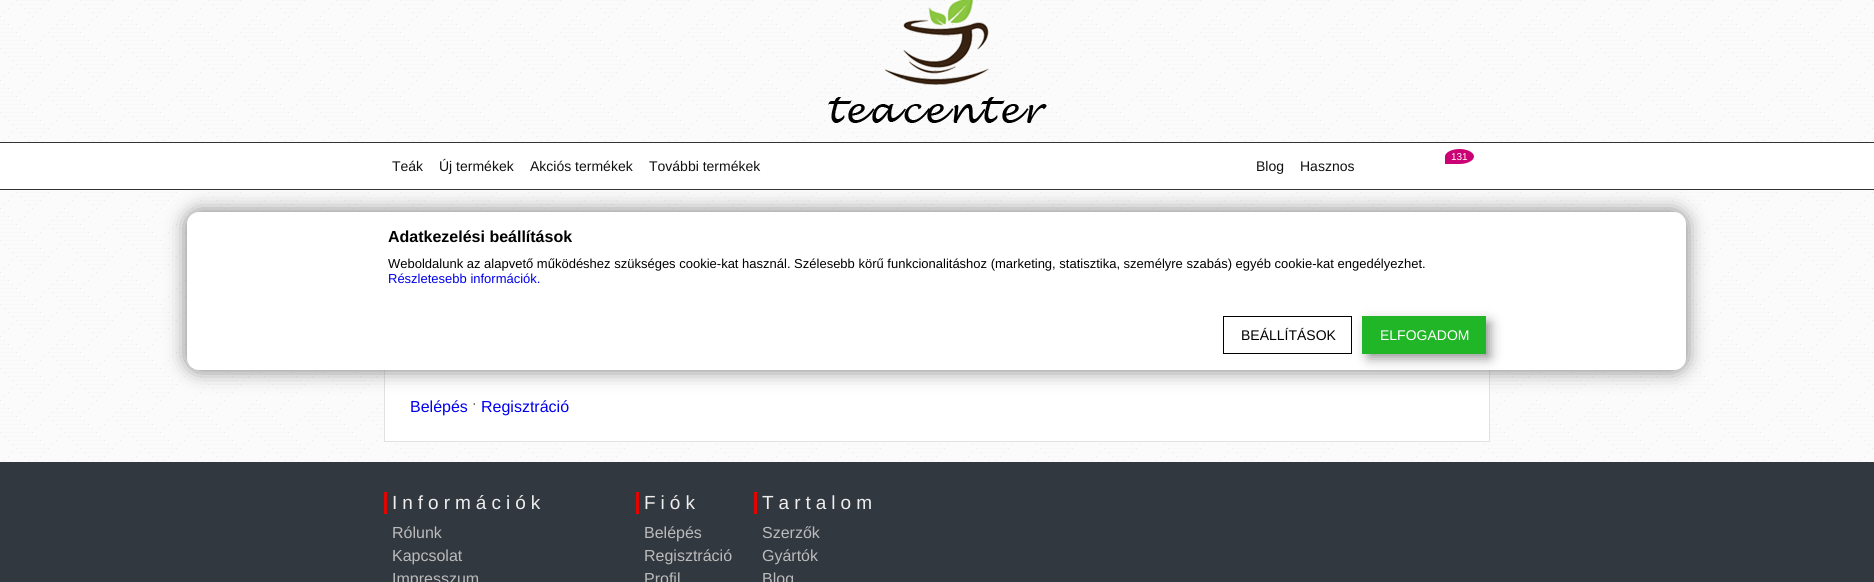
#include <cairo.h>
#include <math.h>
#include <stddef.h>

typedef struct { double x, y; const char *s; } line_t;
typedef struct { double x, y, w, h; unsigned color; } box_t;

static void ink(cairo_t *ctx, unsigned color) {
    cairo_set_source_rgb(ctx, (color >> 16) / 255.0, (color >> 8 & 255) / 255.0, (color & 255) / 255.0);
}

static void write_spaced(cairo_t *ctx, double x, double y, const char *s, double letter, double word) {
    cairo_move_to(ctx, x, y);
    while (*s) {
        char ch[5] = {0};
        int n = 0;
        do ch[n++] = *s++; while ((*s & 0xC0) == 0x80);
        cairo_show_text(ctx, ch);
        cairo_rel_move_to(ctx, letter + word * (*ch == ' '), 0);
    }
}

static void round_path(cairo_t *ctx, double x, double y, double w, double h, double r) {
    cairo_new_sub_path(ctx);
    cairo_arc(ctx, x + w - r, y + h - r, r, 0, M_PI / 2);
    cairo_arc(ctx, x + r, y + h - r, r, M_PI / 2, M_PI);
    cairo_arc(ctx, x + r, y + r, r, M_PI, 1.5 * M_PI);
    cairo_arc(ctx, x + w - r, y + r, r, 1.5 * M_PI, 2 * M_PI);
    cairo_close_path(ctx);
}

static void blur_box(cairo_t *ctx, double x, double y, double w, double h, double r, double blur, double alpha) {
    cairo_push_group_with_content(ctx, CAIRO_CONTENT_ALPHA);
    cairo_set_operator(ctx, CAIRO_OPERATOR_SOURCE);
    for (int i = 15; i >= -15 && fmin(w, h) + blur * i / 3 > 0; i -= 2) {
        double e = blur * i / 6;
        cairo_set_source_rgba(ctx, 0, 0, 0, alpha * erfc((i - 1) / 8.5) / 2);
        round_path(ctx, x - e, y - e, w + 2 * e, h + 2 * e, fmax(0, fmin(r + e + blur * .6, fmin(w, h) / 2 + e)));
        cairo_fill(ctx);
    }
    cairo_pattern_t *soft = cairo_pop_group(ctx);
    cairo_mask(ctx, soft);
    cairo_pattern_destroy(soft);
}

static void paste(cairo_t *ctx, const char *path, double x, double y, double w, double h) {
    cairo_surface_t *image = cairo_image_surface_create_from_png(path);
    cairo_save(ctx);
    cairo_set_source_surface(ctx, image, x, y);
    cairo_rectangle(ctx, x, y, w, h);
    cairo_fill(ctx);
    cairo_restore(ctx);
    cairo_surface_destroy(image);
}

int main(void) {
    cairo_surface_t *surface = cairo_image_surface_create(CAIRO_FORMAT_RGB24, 1874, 582);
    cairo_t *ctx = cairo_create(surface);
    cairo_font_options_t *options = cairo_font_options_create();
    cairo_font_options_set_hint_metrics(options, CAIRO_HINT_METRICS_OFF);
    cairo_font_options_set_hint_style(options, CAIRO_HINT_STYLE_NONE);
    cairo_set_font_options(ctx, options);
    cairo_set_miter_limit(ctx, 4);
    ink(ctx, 0xFFFFFF);
    cairo_paint(ctx);
    paste(ctx, "media/1.png", 0, 0, 1874, 462);
    paste(ctx, "media/2.png", 828, 0, 219, 123);
    {
        static const box_t items[] = {
            {0, 143, 1874, 46, 0xFFFFFF},
            {0, 142, 1874, 1, 0x333333},
            {0, 189, 1874, 1, 0x333333},
        };
        for (size_t i = 0; i < sizeof items / sizeof *items; i++) {
            ink(ctx, items[i].color);
            cairo_rectangle(ctx, items[i].x, items[i].y, items[i].w, items[i].h);
            cairo_fill(ctx);
        }
    }
    ink(ctx, 0xCC0075);
    cairo_new_path(ctx);
    cairo_move_to(ctx, 1459.5, 149);
    cairo_curve_to(ctx, 1467.5, 149, 1474, 152.5, 1474, 156.5);
    cairo_curve_to(ctx, 1474, 160.5, 1467.5, 164, 1459.5, 164);
    cairo_line_to(ctx, 1445, 164);
    cairo_line_to(ctx, 1445, 156.5);
    cairo_curve_to(ctx, 1445, 152.5, 1451.5, 149, 1459.5, 149);
    cairo_close_path(ctx);
    cairo_fill(ctx);
    cairo_select_font_face(ctx, "Liberation Sans", CAIRO_FONT_SLANT_NORMAL, CAIRO_FONT_WEIGHT_NORMAL);
    cairo_set_font_size(ctx, 10);
    ink(ctx, 0xFFFFFF);
    cairo_move_to(ctx, 1451, 160);
    cairo_show_text(ctx, "131");
    cairo_set_font_size(ctx, 14);
    ink(ctx, 0x111111);
    {
        static const line_t items[] = {
            {392, 171, "Teák"},
            {439, 171, "Új termékek"},
            {530, 171, "Akciós termékek"},
            {649, 171, "További termékek"},
            {1256, 171, "Blog"},
            {1300, 171, "Hasznos"},
        };
        for (size_t i = 0; i < sizeof items / sizeof *items; i++) {
            cairo_move_to(ctx, items[i].x, items[i].y);
            cairo_show_text(ctx, items[i].s);
        }
    }
    ink(ctx, 0xFFFFFF);
    cairo_rectangle(ctx, 385, 370, 1104, 71);
    cairo_fill(ctx);
    cairo_rectangle(ctx, 384.5, 254.5, 1105, 187);
    ink(ctx, 0xE1E1E1);
    cairo_set_line_width(ctx, 1);
    cairo_stroke(ctx);
    cairo_set_font_size(ctx, 16);
    ink(ctx, 0x0000EE);
    cairo_move_to(ctx, 410, 412);
    cairo_show_text(ctx, "Belépés");
    ink(ctx, 0x000000);
    cairo_move_to(ctx, 472, 412);
    cairo_show_text(ctx, "ˑ");
    ink(ctx, 0x0000EE);
    cairo_move_to(ctx, 481, 412);
    cairo_show_text(ctx, "Regisztráció");
    ink(ctx, 0x323840);
    cairo_rectangle(ctx, 0, 462, 1874, 120);
    cairo_fill(ctx);
    ink(ctx, 0xE00501);
    cairo_rectangle(ctx, 384, 492, 3, 22);
    cairo_fill(ctx);
    cairo_set_font_size(ctx, 19);
    ink(ctx, 0xEEEEEE);
    write_spaced(ctx, 392, 509, "Információk", 5, 0);
    cairo_set_font_size(ctx, 16);
    ink(ctx, 0xBBBBBB);
    {
        static const line_t items[] = {
            {392, 538, "Rólunk"},
            {392, 561, "Kapcsolat"},
            {392, 584, "Impresszum"},
        };
        for (size_t i = 0; i < sizeof items / sizeof *items; i++) {
            cairo_move_to(ctx, items[i].x, items[i].y);
            cairo_show_text(ctx, items[i].s);
        }
    }
    ink(ctx, 0xE00501);
    cairo_rectangle(ctx, 636, 492, 3, 22);
    cairo_fill(ctx);
    cairo_set_font_size(ctx, 19);
    ink(ctx, 0xEEEEEE);
    write_spaced(ctx, 644, 509, "Fiók", 5, 0);
    cairo_set_font_size(ctx, 16);
    ink(ctx, 0xBBBBBB);
    {
        static const line_t items[] = {
            {644, 538, "Belépés"},
            {644, 561, "Regisztráció"},
            {644, 584, "Profil"},
        };
        for (size_t i = 0; i < sizeof items / sizeof *items; i++) {
            cairo_move_to(ctx, items[i].x, items[i].y);
            cairo_show_text(ctx, items[i].s);
        }
    }
    ink(ctx, 0xE00501);
    cairo_rectangle(ctx, 754, 492, 3, 22);
    cairo_fill(ctx);
    cairo_set_font_size(ctx, 19);
    ink(ctx, 0xEEEEEE);
    write_spaced(ctx, 762, 509, "Tartalom", 5, 0);
    cairo_set_font_size(ctx, 16);
    ink(ctx, 0xBBBBBB);
    {
        static const line_t items[] = {
            {762, 538, "Szerzők"},
            {762, 561, "Gyártók"},
            {762, 584, "Blog"},
        };
        for (size_t i = 0; i < sizeof items / sizeof *items; i++) {
            cairo_move_to(ctx, items[i].x, items[i].y);
            cairo_show_text(ctx, items[i].s);
        }
    }
    ink(ctx, 0x7A7A7A);
    blur_box(ctx, 187, 212, 1499, 158, 12, 10, 1);
    ink(ctx, 0xFFFFFF);
    round_path(ctx, 187, 212, 1499, 158, 12);
    cairo_fill(ctx);
    cairo_select_font_face(ctx, "Liberation Sans", CAIRO_FONT_SLANT_NORMAL, CAIRO_FONT_WEIGHT_BOLD);
    ink(ctx, 0x000000);
    cairo_move_to(ctx, 388, 242);
    cairo_show_text(ctx, "Adatkezelési beállítások");
    cairo_select_font_face(ctx, "Liberation Sans", CAIRO_FONT_SLANT_NORMAL, CAIRO_FONT_WEIGHT_NORMAL);
    cairo_set_font_size(ctx, 13);
    cairo_move_to(ctx, 388, 268);
    cairo_show_text(ctx, "Weboldalunk az alapvető működéshez szükséges cookie-kat használ. Szélesebb körű funkcionalitáshoz (marketing, statisztika, személyre szabás) egyéb cookie-kat engedélyezhet.");
    ink(ctx, 0x0000EE);
    cairo_move_to(ctx, 388, 283);
    cairo_show_text(ctx, "Részletesebb információk.");
    cairo_rectangle(ctx, 1223.5, 316.5, 128, 37);
    ink(ctx, 0x000000);
    cairo_stroke(ctx);
    cairo_set_font_size(ctx, 14);
    cairo_move_to(ctx, 1241, 340);
    cairo_show_text(ctx, "BEÁLLÍTÁSOK");
    ink(ctx, 0x000000);
    blur_box(ctx, 1369, 323, 120, 34, 0, 6.5, 0.49);
    ink(ctx, 0x21B627);
    cairo_rectangle(ctx, 1362, 316, 124, 38);
    cairo_fill(ctx);
    ink(ctx, 0xFFFFFF);
    cairo_move_to(ctx, 1380, 340);
    cairo_show_text(ctx, "ELFOGADOM");
    cairo_surface_write_to_png(surface, "image.png");
    cairo_font_options_destroy(options);
    cairo_destroy(ctx);
    cairo_surface_destroy(surface);
    return 0;
}
